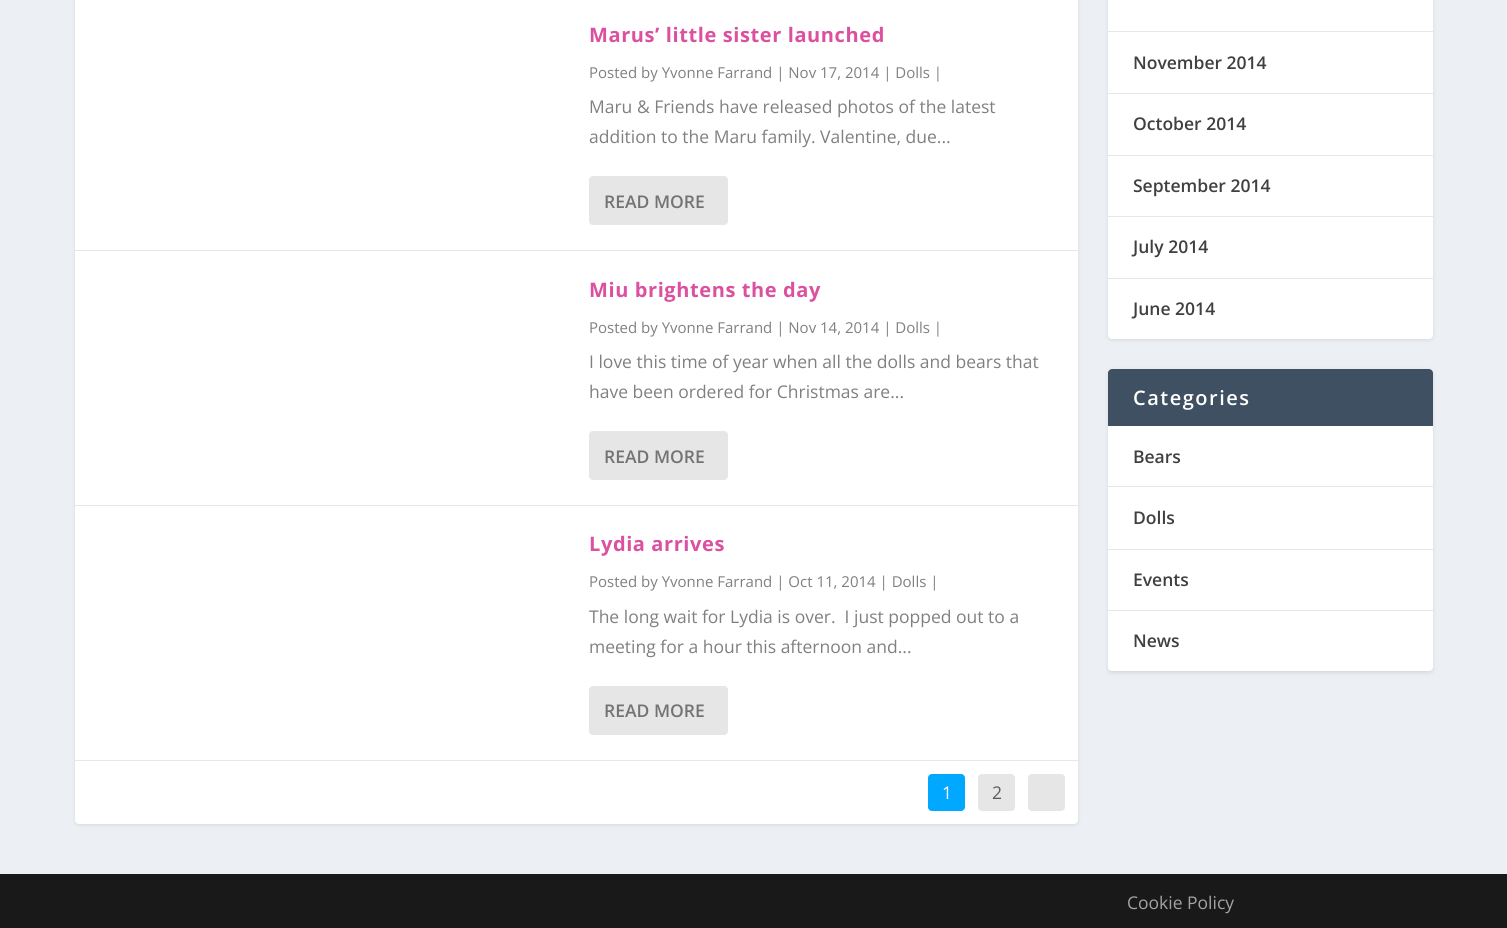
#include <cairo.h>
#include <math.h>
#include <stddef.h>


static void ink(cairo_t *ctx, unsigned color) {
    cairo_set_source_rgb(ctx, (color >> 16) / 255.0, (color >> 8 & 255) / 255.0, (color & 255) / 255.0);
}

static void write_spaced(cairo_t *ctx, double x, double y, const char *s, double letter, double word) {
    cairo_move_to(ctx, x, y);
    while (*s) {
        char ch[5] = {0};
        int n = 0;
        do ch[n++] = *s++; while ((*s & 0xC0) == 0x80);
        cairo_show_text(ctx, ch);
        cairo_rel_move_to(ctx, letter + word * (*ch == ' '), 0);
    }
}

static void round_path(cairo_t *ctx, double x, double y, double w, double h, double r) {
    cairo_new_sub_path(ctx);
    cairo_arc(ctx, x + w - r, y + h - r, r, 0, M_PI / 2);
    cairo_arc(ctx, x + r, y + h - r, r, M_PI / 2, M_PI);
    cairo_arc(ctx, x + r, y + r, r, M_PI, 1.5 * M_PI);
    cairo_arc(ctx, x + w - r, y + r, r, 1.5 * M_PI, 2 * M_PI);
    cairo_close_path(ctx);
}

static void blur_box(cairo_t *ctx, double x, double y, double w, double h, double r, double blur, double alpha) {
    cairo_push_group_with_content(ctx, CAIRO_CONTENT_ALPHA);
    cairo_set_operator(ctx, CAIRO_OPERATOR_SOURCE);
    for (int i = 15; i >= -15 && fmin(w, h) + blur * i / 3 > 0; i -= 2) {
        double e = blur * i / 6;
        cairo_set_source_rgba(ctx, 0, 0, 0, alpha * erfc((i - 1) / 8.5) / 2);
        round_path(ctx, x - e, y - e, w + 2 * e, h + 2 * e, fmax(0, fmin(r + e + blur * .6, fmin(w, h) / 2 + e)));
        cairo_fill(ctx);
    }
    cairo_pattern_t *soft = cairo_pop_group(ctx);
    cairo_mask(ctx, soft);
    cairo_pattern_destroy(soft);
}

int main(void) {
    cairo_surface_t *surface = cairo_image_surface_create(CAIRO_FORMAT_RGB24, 1507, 928);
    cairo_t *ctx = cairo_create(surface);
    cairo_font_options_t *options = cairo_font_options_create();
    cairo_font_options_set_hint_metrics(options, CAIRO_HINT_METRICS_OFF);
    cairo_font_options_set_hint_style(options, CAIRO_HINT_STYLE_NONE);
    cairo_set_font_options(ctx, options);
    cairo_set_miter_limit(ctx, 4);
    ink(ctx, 0xECF0F5);
    cairo_paint(ctx);
    ink(ctx, 0x000000);
    blur_box(ctx, 75, -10, 1003, 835, 4, 2, 0.1);
    ink(ctx, 0xFFFFFF);
    round_path(ctx, 75, -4, 1003, 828, 4);
    cairo_fill(ctx);
    ink(ctx, 0xE6E6E6);
    cairo_rectangle(ctx, 75, 250, 1003, 1);
    cairo_fill(ctx);
    cairo_select_font_face(ctx, "Open Sans", CAIRO_FONT_SLANT_NORMAL, CAIRO_FONT_WEIGHT_BOLD);
    cairo_set_font_size(ctx, 20);
    ink(ctx, 0xDB509F);
    write_spaced(ctx, 589, 42, "Marus’ little sister launched", 0.6, 0);
    cairo_select_font_face(ctx, "Open Sans", CAIRO_FONT_SLANT_NORMAL, CAIRO_FONT_WEIGHT_NORMAL);
    cairo_set_font_size(ctx, 15);
    ink(ctx, 0x808080);
    cairo_move_to(ctx, 589, 78);
    cairo_show_text(ctx, "Posted by Yvonne Farrand | Nov 17, 2014 | Dolls |");
    cairo_set_font_size(ctx, 17.5);
    cairo_move_to(ctx, 589, 113);
    cairo_show_text(ctx, "Maru & Friends have released photos of the latest");
    cairo_move_to(ctx, 589, 143);
    cairo_show_text(ctx, "addition to the Maru family. Valentine, due...");
    ink(ctx, 0xE6E6E6);
    round_path(ctx, 589, 176, 139, 49, 4);
    cairo_fill(ctx);
    cairo_select_font_face(ctx, "Open Sans SemiBold", CAIRO_FONT_SLANT_NORMAL, CAIRO_FONT_WEIGHT_NORMAL);
    ink(ctx, 0x737373);
    cairo_move_to(ctx, 604, 208);
    cairo_show_text(ctx, "READ MORE");
    ink(ctx, 0xE6E6E6);
    cairo_rectangle(ctx, 75, 505, 1003, 1);
    cairo_fill(ctx);
    cairo_select_font_face(ctx, "Open Sans", CAIRO_FONT_SLANT_NORMAL, CAIRO_FONT_WEIGHT_BOLD);
    cairo_set_font_size(ctx, 20);
    ink(ctx, 0xDB509F);
    write_spaced(ctx, 589, 297, "Miu brightens the day", 0.6, 0);
    cairo_select_font_face(ctx, "Open Sans", CAIRO_FONT_SLANT_NORMAL, CAIRO_FONT_WEIGHT_NORMAL);
    cairo_set_font_size(ctx, 15);
    ink(ctx, 0x808080);
    cairo_move_to(ctx, 589, 333);
    cairo_show_text(ctx, "Posted by Yvonne Farrand | Nov 14, 2014 | Dolls |");
    cairo_set_font_size(ctx, 17.5);
    cairo_move_to(ctx, 589, 368);
    cairo_show_text(ctx, "I love this time of year when all the dolls and bears that");
    cairo_move_to(ctx, 589, 398);
    cairo_show_text(ctx, "have been ordered for Christmas are...");
    ink(ctx, 0xE6E6E6);
    round_path(ctx, 589, 431, 139, 49, 4);
    cairo_fill(ctx);
    cairo_select_font_face(ctx, "Open Sans SemiBold", CAIRO_FONT_SLANT_NORMAL, CAIRO_FONT_WEIGHT_NORMAL);
    ink(ctx, 0x737373);
    cairo_move_to(ctx, 604, 463);
    cairo_show_text(ctx, "READ MORE");
    ink(ctx, 0xE6E6E6);
    cairo_rectangle(ctx, 75, 760, 1003, 1);
    cairo_fill(ctx);
    cairo_select_font_face(ctx, "Open Sans", CAIRO_FONT_SLANT_NORMAL, CAIRO_FONT_WEIGHT_BOLD);
    cairo_set_font_size(ctx, 20);
    ink(ctx, 0xDB509F);
    write_spaced(ctx, 589, 551, "Lydia arrives", 0.6, 0);
    cairo_select_font_face(ctx, "Open Sans", CAIRO_FONT_SLANT_NORMAL, CAIRO_FONT_WEIGHT_NORMAL);
    cairo_set_font_size(ctx, 15);
    ink(ctx, 0x808080);
    cairo_move_to(ctx, 589, 587);
    cairo_show_text(ctx, "Posted by Yvonne Farrand | Oct 11, 2014 | Dolls |");
    cairo_set_font_size(ctx, 17.5);
    cairo_move_to(ctx, 589, 623);
    cairo_show_text(ctx, "The long wait for Lydia is over.  I just popped out to a");
    cairo_move_to(ctx, 589, 653);
    cairo_show_text(ctx, "meeting for a hour this afternoon and...");
    ink(ctx, 0xE6E6E6);
    round_path(ctx, 589, 686, 139, 49, 4);
    cairo_fill(ctx);
    cairo_select_font_face(ctx, "Open Sans SemiBold", CAIRO_FONT_SLANT_NORMAL, CAIRO_FONT_WEIGHT_NORMAL);
    ink(ctx, 0x737373);
    cairo_move_to(ctx, 604, 717);
    cairo_show_text(ctx, "READ MORE");
    ink(ctx, 0x00A8FF);
    round_path(ctx, 928, 774, 37, 37, 4);
    cairo_fill(ctx);
    cairo_select_font_face(ctx, "Open Sans", CAIRO_FONT_SLANT_NORMAL, CAIRO_FONT_WEIGHT_NORMAL);
    ink(ctx, 0xFFFFFF);
    cairo_move_to(ctx, 942, 799);
    cairo_show_text(ctx, "1");
    ink(ctx, 0xE6E6E6);
    round_path(ctx, 978, 774, 37, 37, 4);
    cairo_fill(ctx);
    ink(ctx, 0x5C5C5C);
    cairo_move_to(ctx, 992, 799);
    cairo_show_text(ctx, "2");
    ink(ctx, 0xE6E6E6);
    round_path(ctx, 1028, 774, 37, 37, 4);
    cairo_fill(ctx);
    ink(ctx, 0x000000);
    blur_box(ctx, 1108, -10, 325, 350, 4, 2, 0.1);
    ink(ctx, 0xFFFFFF);
    round_path(ctx, 1108, -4, 325, 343, 4);
    cairo_fill(ctx);
    ink(ctx, 0xE6E6E6);
    cairo_rectangle(ctx, 1108, 31, 325, 1);
    cairo_fill(ctx);
    cairo_rectangle(ctx, 1108, 93, 325, 1);
    cairo_fill(ctx);
    cairo_select_font_face(ctx, "Open Sans SemiBold", CAIRO_FONT_SLANT_NORMAL, CAIRO_FONT_WEIGHT_NORMAL);
    ink(ctx, 0x404040);
    cairo_move_to(ctx, 1133, 69);
    cairo_show_text(ctx, "November 2014");
    ink(ctx, 0xE6E6E6);
    cairo_rectangle(ctx, 1108, 155, 325, 1);
    cairo_fill(ctx);
    ink(ctx, 0x404040);
    cairo_move_to(ctx, 1133, 130);
    cairo_show_text(ctx, "October 2014");
    ink(ctx, 0xE6E6E6);
    cairo_rectangle(ctx, 1108, 216, 325, 1);
    cairo_fill(ctx);
    ink(ctx, 0x404040);
    cairo_move_to(ctx, 1133, 192);
    cairo_show_text(ctx, "September 2014");
    ink(ctx, 0xE6E6E6);
    cairo_rectangle(ctx, 1108, 278, 325, 1);
    cairo_fill(ctx);
    ink(ctx, 0x404040);
    cairo_move_to(ctx, 1133, 253);
    cairo_show_text(ctx, "July 2014");
    cairo_move_to(ctx, 1133, 315);
    cairo_show_text(ctx, "June 2014");
    ink(ctx, 0x000000);
    blur_box(ctx, 1108, 370, 325, 303, 4, 2, 0.1);
    ink(ctx, 0xFFFFFF);
    round_path(ctx, 1108, 369, 325, 302, 4);
    cairo_fill(ctx);
    ink(ctx, 0x3E5062);
    cairo_new_path(ctx);
    cairo_move_to(ctx, 1112, 369);
    cairo_line_to(ctx, 1429, 369);
    cairo_curve_to(ctx, 1431, 369, 1433, 371, 1433, 373);
    cairo_line_to(ctx, 1433, 426);
    cairo_line_to(ctx, 1108, 426);
    cairo_line_to(ctx, 1108, 373);
    cairo_curve_to(ctx, 1108, 371, 1110, 369, 1112, 369);
    cairo_close_path(ctx);
    cairo_fill(ctx);
    cairo_set_font_size(ctx, 20);
    ink(ctx, 0xFFFFFF);
    write_spaced(ctx, 1133, 405, "Categories", 1.5, 0);
    ink(ctx, 0xE6E6E6);
    cairo_rectangle(ctx, 1108, 486, 325, 1);
    cairo_fill(ctx);
    cairo_set_font_size(ctx, 17.5);
    ink(ctx, 0x404040);
    cairo_move_to(ctx, 1133, 463);
    cairo_show_text(ctx, "Bears");
    ink(ctx, 0xE6E6E6);
    cairo_rectangle(ctx, 1108, 549, 325, 1);
    cairo_fill(ctx);
    ink(ctx, 0x404040);
    cairo_move_to(ctx, 1133, 524);
    cairo_show_text(ctx, "Dolls");
    ink(ctx, 0xE6E6E6);
    cairo_rectangle(ctx, 1108, 610, 325, 1);
    cairo_fill(ctx);
    ink(ctx, 0x404040);
    cairo_move_to(ctx, 1133, 586);
    cairo_show_text(ctx, "Events");
    cairo_move_to(ctx, 1133, 647);
    cairo_show_text(ctx, "News");
    ink(ctx, 0x191919);
    cairo_rectangle(ctx, 0, 874, 1507, 54);
    cairo_fill(ctx);
    cairo_select_font_face(ctx, "Open Sans", CAIRO_FONT_SLANT_NORMAL, CAIRO_FONT_WEIGHT_NORMAL);
    ink(ctx, 0xA3A3A3);
    cairo_move_to(ctx, 1127, 909);
    cairo_show_text(ctx, "Cookie Policy");
    cairo_surface_write_to_png(surface, "image.png");
    cairo_font_options_destroy(options);
    cairo_destroy(ctx);
    cairo_surface_destroy(surface);
    return 0;
}
